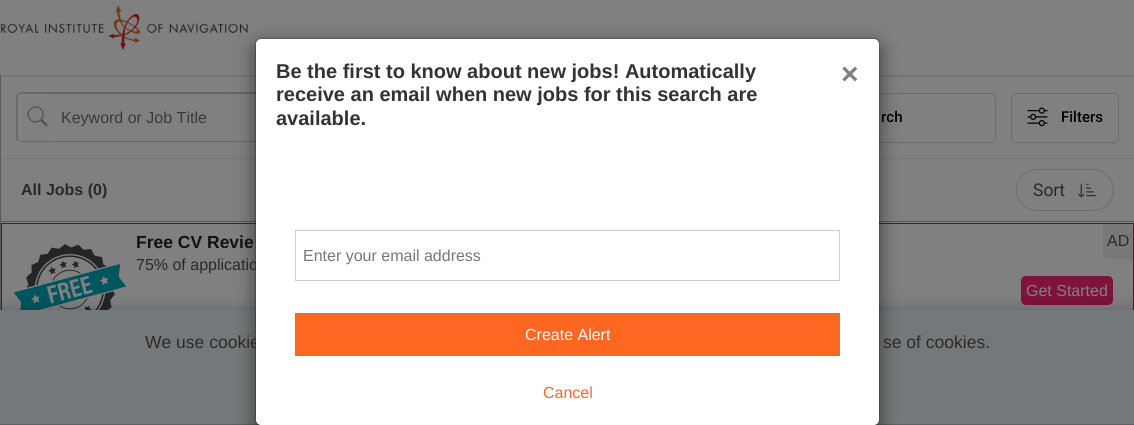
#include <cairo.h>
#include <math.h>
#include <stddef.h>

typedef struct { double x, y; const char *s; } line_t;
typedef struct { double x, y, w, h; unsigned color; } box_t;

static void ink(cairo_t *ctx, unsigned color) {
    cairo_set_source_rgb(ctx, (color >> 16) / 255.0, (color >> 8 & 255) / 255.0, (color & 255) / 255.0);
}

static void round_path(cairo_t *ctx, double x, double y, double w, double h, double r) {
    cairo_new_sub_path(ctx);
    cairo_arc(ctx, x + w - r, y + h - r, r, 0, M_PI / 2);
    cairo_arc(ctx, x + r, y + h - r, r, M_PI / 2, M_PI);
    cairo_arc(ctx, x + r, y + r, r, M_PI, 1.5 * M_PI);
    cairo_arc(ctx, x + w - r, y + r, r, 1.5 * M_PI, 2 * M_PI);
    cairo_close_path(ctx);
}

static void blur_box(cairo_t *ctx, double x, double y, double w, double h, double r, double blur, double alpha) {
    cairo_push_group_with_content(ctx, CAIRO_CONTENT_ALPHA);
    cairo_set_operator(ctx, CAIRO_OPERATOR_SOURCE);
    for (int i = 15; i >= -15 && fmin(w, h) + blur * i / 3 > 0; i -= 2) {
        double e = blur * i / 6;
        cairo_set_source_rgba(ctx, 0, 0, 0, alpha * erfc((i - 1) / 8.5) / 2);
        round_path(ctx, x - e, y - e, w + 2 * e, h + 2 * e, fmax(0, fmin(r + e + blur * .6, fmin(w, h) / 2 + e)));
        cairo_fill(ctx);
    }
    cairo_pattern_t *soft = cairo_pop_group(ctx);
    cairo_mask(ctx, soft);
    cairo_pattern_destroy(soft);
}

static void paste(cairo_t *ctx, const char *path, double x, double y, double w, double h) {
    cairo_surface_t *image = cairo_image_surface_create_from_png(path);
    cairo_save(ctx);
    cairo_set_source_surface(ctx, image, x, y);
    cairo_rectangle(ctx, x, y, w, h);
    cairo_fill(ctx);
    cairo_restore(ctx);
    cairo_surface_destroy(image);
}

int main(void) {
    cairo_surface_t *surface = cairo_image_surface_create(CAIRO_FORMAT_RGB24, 1134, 425);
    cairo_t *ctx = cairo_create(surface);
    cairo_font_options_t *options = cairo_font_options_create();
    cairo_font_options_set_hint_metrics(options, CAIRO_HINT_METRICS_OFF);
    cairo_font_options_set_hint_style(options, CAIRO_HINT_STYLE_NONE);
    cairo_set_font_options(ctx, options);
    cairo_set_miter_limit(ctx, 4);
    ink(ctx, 0x808080);
    cairo_paint(ctx);
    paste(ctx, "media/1.png", 0, 5, 248, 45);
    {
        static const box_t items[] = {
            {0, 75, 1134, 1, 0x767676},
            {1, 76, 1133, 1, 0x767676},
            {1, 158, 1133, 1, 0x767676},
        };
        for (size_t i = 0; i < sizeof items / sizeof *items; i++) {
            ink(ctx, items[i].color);
            cairo_rectangle(ctx, items[i].x, items[i].y, items[i].w, items[i].h);
            cairo_fill(ctx);
        }
    }
    ink(ctx, 0x676A6D);
    cairo_set_fill_rule(ctx, CAIRO_FILL_RULE_EVEN_ODD);
    cairo_new_path(ctx);
    cairo_move_to(ctx, 21, 92);
    cairo_line_to(ctx, 52, 92);
    cairo_line_to(ctx, 52, 142);
    cairo_line_to(ctx, 21, 142);
    cairo_curve_to(ctx, 18, 142, 16, 140, 16, 138);
    cairo_line_to(ctx, 16, 98);
    cairo_curve_to(ctx, 16, 95, 18, 92, 21, 92);
    cairo_close_path(ctx);
    cairo_move_to(ctx, 21, 94);
    cairo_line_to(ctx, 52, 94);
    cairo_line_to(ctx, 52, 141);
    cairo_line_to(ctx, 21, 141);
    cairo_curve_to(ctx, 19, 141, 18, 140, 18, 138);
    cairo_line_to(ctx, 18, 98);
    cairo_curve_to(ctx, 18, 95, 19, 94, 21, 94);
    cairo_close_path(ctx);
    cairo_fill(ctx);
    ink(ctx, 0x666666);
    cairo_new_path(ctx);
    cairo_move_to(ctx, 51, 92);
    cairo_line_to(ctx, 369, 92);
    cairo_curve_to(ctx, 372, 92, 374, 95, 374, 98);
    cairo_line_to(ctx, 374, 138);
    cairo_curve_to(ctx, 374, 140, 372, 142, 369, 142);
    cairo_line_to(ctx, 51, 142);
    cairo_close_path(ctx);
    cairo_move_to(ctx, 51, 94);
    cairo_line_to(ctx, 369, 94);
    cairo_curve_to(ctx, 371, 94, 372, 95, 372, 98);
    cairo_line_to(ctx, 372, 138);
    cairo_curve_to(ctx, 372, 140, 371, 141, 369, 141);
    cairo_line_to(ctx, 51, 141);
    cairo_close_path(ctx);
    cairo_fill(ctx);
    round_path(ctx, 761.5, 93.5, 234, 49, 4.5);
    ink(ctx, 0x6D6D6D);
    cairo_set_line_width(ctx, 1);
    cairo_stroke(ctx);
    ink(ctx, 0x575B5F);
    cairo_rectangle(ctx, 1, 221, 1133, 1);
    cairo_fill(ctx);
    cairo_rectangle(ctx, 1.5, 223.5, 1132, 132);
    ink(ctx, 0x730A31);
    cairo_stroke(ctx);
    ink(ctx, 0x575B5F);
    cairo_rectangle(ctx, 0, 75, 1, 235);
    cairo_fill(ctx);
    paste(ctx, "media/5.png", 14, 244, 112, 66);
    ink(ctx, 0x7E133B);
    round_path(ctx, 1021, 276, 92, 29, 5);
    cairo_fill(ctx);
    ink(ctx, 0x000000);
    blur_box(ctx, 0, 316, 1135, 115, 0, 9.5, 0.5);
    ink(ctx, 0x75787A);
    cairo_rectangle(ctx, 0, 310, 1134, 114);
    cairo_fill(ctx);
    ink(ctx, 0x5E6062);
    cairo_rectangle(ctx, 0, 424, 1134, 1);
    cairo_fill(ctx);
    ink(ctx, 0x000000);
    blur_box(ctx, 255, 44, 625, 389, 6, 9.5, 0.5);
    cairo_select_font_face(ctx, "Liberation Sans", CAIRO_FONT_SLANT_NORMAL, CAIRO_FONT_WEIGHT_NORMAL);
    cairo_set_font_size(ctx, 16);
    ink(ctx, 0x2A2A2A);
    cairo_move_to(ctx, 136, 270);
    cairo_show_text(ctx, "75% of applicatio");
    cairo_set_font_size(ctx, 17.5);
    cairo_move_to(ctx, 145, 348);
    cairo_show_text(ctx, "We use cookie");
    ink(ctx, 0xFFFFFF);
    round_path(ctx, 256, 39, 623, 386, 5);
    cairo_fill(ctx);
    round_path(ctx, 255.5, 38.5, 624, 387, 5.5);
    cairo_set_source_rgba(ctx, 0, 0, 0, 0.2);
    cairo_stroke(ctx);
    cairo_select_font_face(ctx, "Liberation Sans", CAIRO_FONT_SLANT_NORMAL, CAIRO_FONT_WEIGHT_BOLD);
    cairo_set_font_size(ctx, 20);
    ink(ctx, 0x333333);
    {
        static const line_t items[] = {
            {276, 78, "Be the first to know about new jobs! Automatically"},
            {276, 101, "receive an email when new jobs for this search are"},
            {276, 125, "available."},
        };
        for (size_t i = 0; i < sizeof items / sizeof *items; i++) {
            cairo_move_to(ctx, items[i].x, items[i].y);
            cairo_show_text(ctx, items[i].s);
        }
    }
    cairo_set_font_size(ctx, 30);
    ink(ctx, 0x808080);
    cairo_move_to(ctx, 841, 84);
    cairo_show_text(ctx, "×");
    cairo_rectangle(ctx, 295.5, 230.5, 544, 50);
    ink(ctx, 0xCCCCCC);
    cairo_stroke(ctx);
    cairo_select_font_face(ctx, "Liberation Sans", CAIRO_FONT_SLANT_NORMAL, CAIRO_FONT_WEIGHT_NORMAL);
    cairo_set_font_size(ctx, 16);
    ink(ctx, 0x777777);
    cairo_move_to(ctx, 303, 261);
    cairo_show_text(ctx, "Enter your email address");
    ink(ctx, 0xFD6722);
    cairo_rectangle(ctx, 295, 313, 545, 43);
    cairo_fill(ctx);
    ink(ctx, 0xFFFFFF);
    cairo_move_to(ctx, 525, 340);
    cairo_show_text(ctx, "Create Alert");
    ink(ctx, 0xFD6722);
    cairo_move_to(ctx, 543, 398);
    cairo_show_text(ctx, "Cancel");
    paste(ctx, "media/2.png", 27, 106, 21, 21);
    cairo_save(ctx);
    cairo_set_fill_rule(ctx, CAIRO_FILL_RULE_WINDING);
    cairo_rectangle(ctx, 61, 108, 297, 18);
    cairo_clip(ctx);
    ink(ctx, 0x363B3F);
    cairo_move_to(ctx, 61, 123);
    cairo_show_text(ctx, "Keyword or Job Title");
    cairo_restore(ctx);
    cairo_select_font_face(ctx, "Roboto Medium", CAIRO_FONT_SLANT_NORMAL, CAIRO_FONT_WEIGHT_NORMAL);
    cairo_set_font_size(ctx, 15);
    ink(ctx, 0x000000);
    cairo_move_to(ctx, 881, 122);
    cairo_show_text(ctx, "rch");
    round_path(ctx, 1011.5, 93.5, 107, 49, 4.5);
    ink(ctx, 0x6D6D6D);
    cairo_stroke(ctx);
    paste(ctx, "media/3.png", 1027, 107, 21, 20);
    ink(ctx, 0x000000);
    cairo_move_to(ctx, 1061, 122);
    cairo_show_text(ctx, "Filters");
    cairo_select_font_face(ctx, "Liberation Sans", CAIRO_FONT_SLANT_NORMAL, CAIRO_FONT_WEIGHT_BOLD);
    cairo_set_font_size(ctx, 16);
    ink(ctx, 0x2A2A2A);
    cairo_move_to(ctx, 21, 195);
    cairo_show_text(ctx, "All Jobs (0)");
    round_path(ctx, 1016.5, 169.5, 97, 41, 20.5);
    ink(ctx, 0x6D6D6D);
    cairo_stroke(ctx);
    cairo_select_font_face(ctx, "Roboto", CAIRO_FONT_SLANT_NORMAL, CAIRO_FONT_WEIGHT_NORMAL);
    cairo_set_font_size(ctx, 17.5);
    ink(ctx, 0x2A2A2A);
    cairo_move_to(ctx, 1033, 196);
    cairo_show_text(ctx, "Sort");
    paste(ctx, "media/4.png", 1078, 183, 19, 15);
    cairo_select_font_face(ctx, "Liberation Sans", CAIRO_FONT_SLANT_NORMAL, CAIRO_FONT_WEIGHT_BOLD);
    ink(ctx, 0x111111);
    cairo_move_to(ctx, 136, 248);
    cairo_show_text(ctx, "Free CV Revie");
    ink(ctx, 0x787878);
    cairo_new_path(ctx);
    cairo_move_to(ctx, 1103, 224);
    cairo_line_to(ctx, 1129, 224);
    cairo_curve_to(ctx, 1131, 224, 1133, 226, 1133, 228);
    cairo_line_to(ctx, 1133, 259);
    cairo_line_to(ctx, 1107, 259);
    cairo_curve_to(ctx, 1105, 259, 1103, 257, 1103, 255);
    cairo_close_path(ctx);
    cairo_fill(ctx);
    cairo_select_font_face(ctx, "Liberation Sans", CAIRO_FONT_SLANT_NORMAL, CAIRO_FONT_WEIGHT_NORMAL);
    cairo_set_font_size(ctx, 16);
    ink(ctx, 0x2A2A2A);
    cairo_move_to(ctx, 1107, 246);
    cairo_show_text(ctx, "AD");
    ink(ctx, 0x808080);
    cairo_move_to(ctx, 1026, 296);
    cairo_show_text(ctx, "Get Started");
    cairo_set_font_size(ctx, 17.5);
    ink(ctx, 0x2A2A2A);
    cairo_move_to(ctx, 883, 348);
    cairo_show_text(ctx, "se of cookies.");
    cairo_surface_write_to_png(surface, "image.png");
    cairo_font_options_destroy(options);
    cairo_destroy(ctx);
    cairo_surface_destroy(surface);
    return 0;
}
